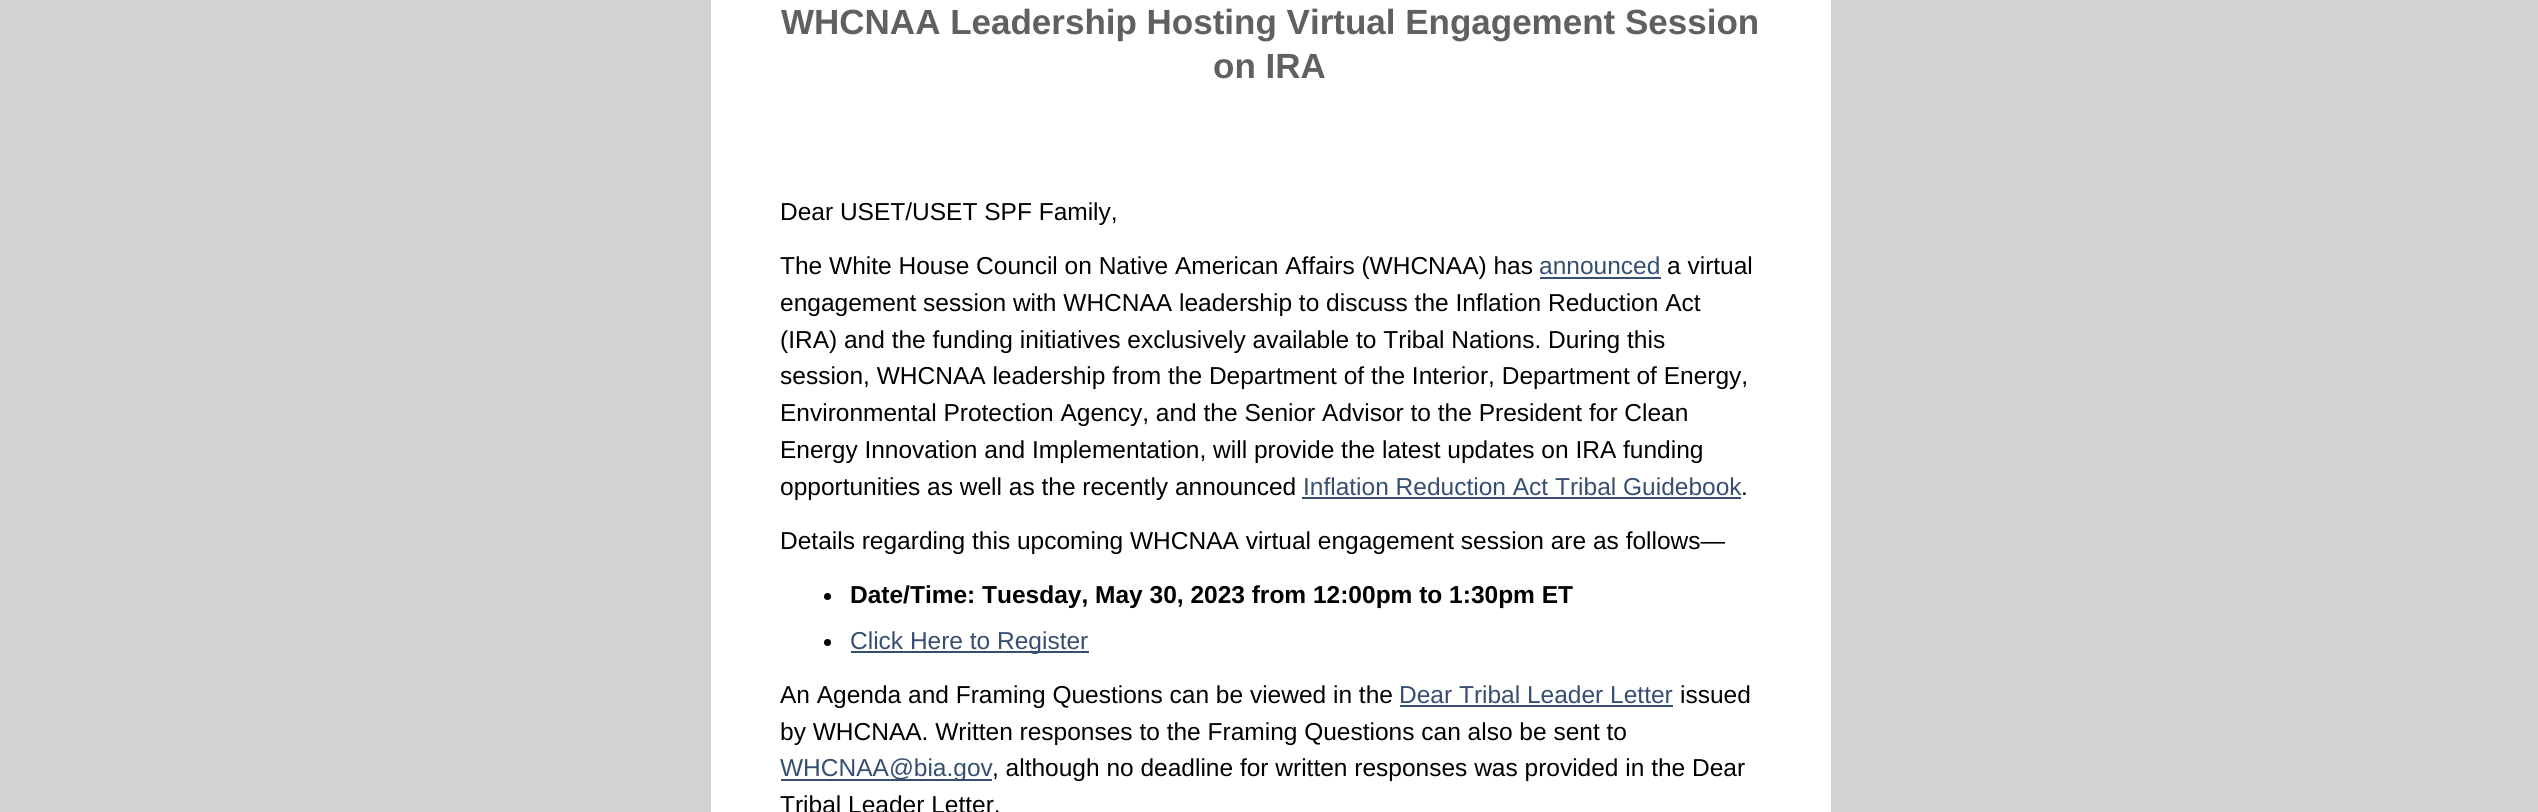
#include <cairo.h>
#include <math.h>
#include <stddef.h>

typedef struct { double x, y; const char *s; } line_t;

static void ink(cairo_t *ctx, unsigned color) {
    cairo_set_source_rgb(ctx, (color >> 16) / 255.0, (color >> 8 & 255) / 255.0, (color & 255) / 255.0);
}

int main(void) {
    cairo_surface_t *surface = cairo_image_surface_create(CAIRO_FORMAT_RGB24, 2538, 812);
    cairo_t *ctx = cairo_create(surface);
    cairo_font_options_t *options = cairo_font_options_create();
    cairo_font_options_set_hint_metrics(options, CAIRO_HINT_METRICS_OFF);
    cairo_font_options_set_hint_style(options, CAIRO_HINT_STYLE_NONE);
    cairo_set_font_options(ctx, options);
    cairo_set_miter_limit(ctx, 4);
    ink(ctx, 0xD1D3D3);
    cairo_paint(ctx);
    ink(ctx, 0xFFFFFF);
    cairo_rectangle(ctx, 711, 0, 1120, 812);
    cairo_fill(ctx);
    cairo_select_font_face(ctx, "Liberation Sans", CAIRO_FONT_SLANT_NORMAL, CAIRO_FONT_WEIGHT_BOLD);
    cairo_set_font_size(ctx, 35);
    ink(ctx, 0x606060);
    cairo_move_to(ctx, 781, 34);
    cairo_show_text(ctx, "WHCNAA Leadership Hosting Virtual Engagement Session");
    cairo_move_to(ctx, 1213, 78);
    cairo_show_text(ctx, "on IRA");
    cairo_select_font_face(ctx, "Liberation Sans", CAIRO_FONT_SLANT_NORMAL, CAIRO_FONT_WEIGHT_NORMAL);
    cairo_set_font_size(ctx, 24.5);
    ink(ctx, 0x000000);
    cairo_move_to(ctx, 780, 220);
    cairo_show_text(ctx, "Dear USET/USET SPF Family,");
    cairo_move_to(ctx, 780, 274);
    cairo_show_text(ctx, "The White House Council on Native American Affairs (WHCNAA) has");
    ink(ctx, 0x354E71);
    cairo_move_to(ctx, 1539, 274);
    cairo_show_text(ctx, "announced");
    cairo_rectangle(ctx, 1540, 277, 121, 2);
    cairo_fill(ctx);
    ink(ctx, 0x000000);
    {
        static const line_t items[] = {
            {1667, 274, "a virtual"},
            {780, 311, "engagement session with WHCNAA leadership to discuss the Inflation Reduction Act"},
            {780, 348, "(IRA) and the funding initiatives exclusively available to Tribal Nations. During this"},
            {780, 384, "session, WHCNAA leadership from the Department of the Interior, Department of Energy,"},
            {780, 421, "Environmental Protection Agency, and the Senior Advisor to the President for Clean"},
            {780, 458, "Energy Innovation and Implementation, will provide the latest updates on IRA funding"},
            {780, 495, "opportunities as well as the recently announced"},
        };
        for (size_t i = 0; i < sizeof items / sizeof *items; i++) {
            cairo_move_to(ctx, items[i].x, items[i].y);
            cairo_show_text(ctx, items[i].s);
        }
    }
    ink(ctx, 0x354E71);
    cairo_move_to(ctx, 1303, 495);
    cairo_show_text(ctx, "Inflation Reduction Act Tribal Guidebook");
    cairo_rectangle(ctx, 1302, 497, 439, 2);
    cairo_fill(ctx);
    ink(ctx, 0x000000);
    cairo_move_to(ctx, 1741, 495);
    cairo_show_text(ctx, ".");
    cairo_move_to(ctx, 780, 549);
    cairo_show_text(ctx, "Details regarding this upcoming WHCNAA virtual engagement session are as follows—");
    cairo_new_path(ctx);
    cairo_arc(ctx, 827.5, 596.5, 3.5, 0, 2 * M_PI);
    cairo_fill(ctx);
    cairo_select_font_face(ctx, "Liberation Sans", CAIRO_FONT_SLANT_NORMAL, CAIRO_FONT_WEIGHT_BOLD);
    cairo_move_to(ctx, 850, 603);
    cairo_show_text(ctx, "Date/Time: Tuesday, May 30, 2023 from 12:00pm to 1:30pm ET");
    cairo_new_path(ctx);
    cairo_arc(ctx, 827.5, 642.5, 3.5, 0, 2 * M_PI);
    cairo_fill(ctx);
    ink(ctx, 0x354E71);
    cairo_rectangle(ctx, 851, 651, 238, 2);
    cairo_fill(ctx);
    cairo_select_font_face(ctx, "Liberation Sans", CAIRO_FONT_SLANT_NORMAL, CAIRO_FONT_WEIGHT_NORMAL);
    cairo_move_to(ctx, 850, 649);
    cairo_show_text(ctx, "Click Here to Register");
    ink(ctx, 0x000000);
    cairo_move_to(ctx, 780, 703);
    cairo_show_text(ctx, "An Agenda and Framing Questions can be viewed in the");
    ink(ctx, 0x354E71);
    cairo_move_to(ctx, 1399, 703);
    cairo_show_text(ctx, "Dear Tribal Leader Letter");
    cairo_rectangle(ctx, 1400, 705, 273, 2);
    cairo_fill(ctx);
    ink(ctx, 0x000000);
    cairo_move_to(ctx, 1680, 703);
    cairo_show_text(ctx, "issued");
    cairo_move_to(ctx, 780, 740);
    cairo_show_text(ctx, "by WHCNAA. Written responses to the Framing Questions can also be sent to");
    ink(ctx, 0x354E71);
    cairo_rectangle(ctx, 781, 779, 211, 2);
    cairo_fill(ctx);
    cairo_move_to(ctx, 780, 776);
    cairo_show_text(ctx, "WHCNAA@bia.gov");
    ink(ctx, 0x000000);
    cairo_move_to(ctx, 992, 776);
    cairo_show_text(ctx, ", although no deadline for written responses was provided in the Dear");
    cairo_move_to(ctx, 780, 813);
    cairo_show_text(ctx, "Tribal Leader Letter.");
    cairo_surface_write_to_png(surface, "image.png");
    cairo_font_options_destroy(options);
    cairo_destroy(ctx);
    cairo_surface_destroy(surface);
    return 0;
}
